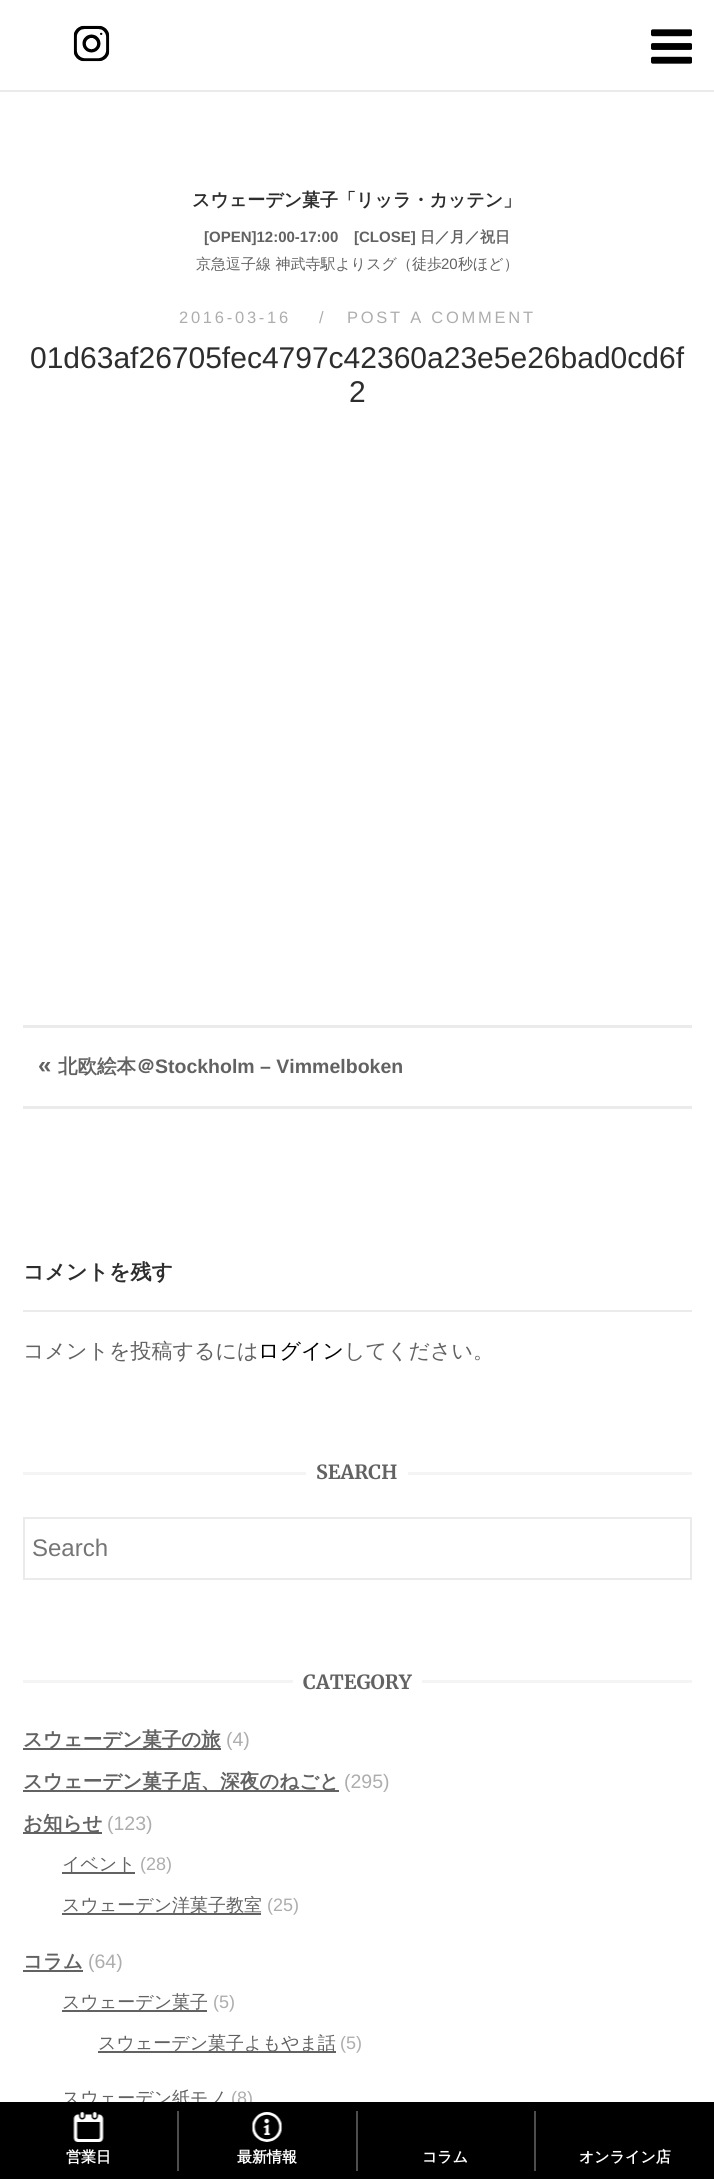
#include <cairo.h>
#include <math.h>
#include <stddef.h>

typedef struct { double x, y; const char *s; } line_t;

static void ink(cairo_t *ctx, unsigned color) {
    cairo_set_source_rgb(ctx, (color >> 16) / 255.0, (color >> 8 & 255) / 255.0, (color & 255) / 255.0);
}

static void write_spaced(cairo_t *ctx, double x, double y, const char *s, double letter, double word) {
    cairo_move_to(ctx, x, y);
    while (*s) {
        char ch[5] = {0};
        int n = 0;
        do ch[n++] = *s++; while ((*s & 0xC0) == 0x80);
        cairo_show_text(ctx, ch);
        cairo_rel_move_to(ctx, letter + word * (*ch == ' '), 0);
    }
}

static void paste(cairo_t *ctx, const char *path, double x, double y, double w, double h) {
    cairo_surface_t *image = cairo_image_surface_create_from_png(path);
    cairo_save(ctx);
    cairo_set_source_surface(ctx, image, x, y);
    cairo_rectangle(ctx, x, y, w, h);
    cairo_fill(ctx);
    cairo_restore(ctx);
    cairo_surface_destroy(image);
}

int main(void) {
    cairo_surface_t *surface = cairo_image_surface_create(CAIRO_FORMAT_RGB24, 714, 2179);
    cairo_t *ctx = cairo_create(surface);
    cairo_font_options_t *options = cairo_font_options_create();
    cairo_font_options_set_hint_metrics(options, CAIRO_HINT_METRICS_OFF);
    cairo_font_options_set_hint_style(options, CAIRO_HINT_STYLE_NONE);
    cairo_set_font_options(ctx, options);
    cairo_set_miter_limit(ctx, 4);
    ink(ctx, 0xFFFFFF);
    cairo_paint(ctx);
    ink(ctx, 0xEBEBEB);
    cairo_rectangle(ctx, 0, 90, 714, 2);
    cairo_fill(ctx);
    paste(ctx, "media/1.png", 73, 25, 37, 37);
    paste(ctx, "media/2.png", 651, 29, 41, 35);
    cairo_select_font_face(ctx, "WenQuanYi Zen Hei", CAIRO_FONT_SLANT_NORMAL, CAIRO_FONT_WEIGHT_BOLD);
    cairo_set_font_size(ctx, 18);
    ink(ctx, 0x2D2D2D);
    cairo_move_to(ctx, 192, 206);
    cairo_show_text(ctx, "スウェーデン菓子「リッラ・カッテン」");
    cairo_select_font_face(ctx, "Liberation Sans", CAIRO_FONT_SLANT_NORMAL, CAIRO_FONT_WEIGHT_BOLD);
    cairo_set_font_size(ctx, 15);
    ink(ctx, 0x626262);
    cairo_move_to(ctx, 204, 242);
    cairo_show_text(ctx, "[OPEN]12:00-17:00");
    cairo_move_to(ctx, 354, 242);
    cairo_show_text(ctx, "[CLOSE]");
    cairo_select_font_face(ctx, "WenQuanYi Zen Hei", CAIRO_FONT_SLANT_NORMAL, CAIRO_FONT_WEIGHT_BOLD);
    cairo_move_to(ctx, 420, 242);
    cairo_show_text(ctx, "日／月／祝日");
    cairo_select_font_face(ctx, "WenQuanYi Zen Hei Medium", CAIRO_FONT_SLANT_NORMAL, CAIRO_FONT_WEIGHT_NORMAL);
    cairo_move_to(ctx, 196, 269);
    cairo_show_text(ctx, "京急逗子線 神武寺駅よりスグ（徒歩");
    cairo_select_font_face(ctx, "Liberation Sans", CAIRO_FONT_SLANT_NORMAL, CAIRO_FONT_WEIGHT_NORMAL);
    cairo_move_to(ctx, 441, 269);
    cairo_show_text(ctx, "20");
    cairo_select_font_face(ctx, "WenQuanYi Zen Hei Medium", CAIRO_FONT_SLANT_NORMAL, CAIRO_FONT_WEIGHT_NORMAL);
    cairo_move_to(ctx, 458, 269);
    cairo_show_text(ctx, "秒ほど）");
    cairo_select_font_face(ctx, "Liberation Sans", CAIRO_FONT_SLANT_NORMAL, CAIRO_FONT_WEIGHT_NORMAL);
    cairo_set_font_size(ctx, 16.5);
    ink(ctx, 0xADADAD);
    {
        static const line_t items[] = {
            {179, 323, "2016-03-16"},
            {319, 323, "/"},
            {347, 323, "POST A COMMENT"},
        };
        for (size_t i = 0; i < sizeof items / sizeof *items; i++) {
            write_spaced(ctx, items[i].x, items[i].y, items[i].s, 2.75, 0);
        }
    }
    cairo_set_font_size(ctx, 30);
    ink(ctx, 0x2D2D2D);
    cairo_move_to(ctx, 30, 368);
    cairo_show_text(ctx, "01d63af26705fec4797c42360a23e5e26bad0cd6f");
    cairo_move_to(ctx, 349, 402);
    cairo_show_text(ctx, "2");
    ink(ctx, 0xEBEBEB);
    cairo_rectangle(ctx, 23, 1025, 669, 3);
    cairo_fill(ctx);
    cairo_rectangle(ctx, 23, 1106, 669, 3);
    cairo_fill(ctx);
    cairo_select_font_face(ctx, "Liberation Sans", CAIRO_FONT_SLANT_NORMAL, CAIRO_FONT_WEIGHT_BOLD);
    cairo_set_font_size(ctx, 24);
    ink(ctx, 0x626262);
    cairo_move_to(ctx, 38, 1073);
    cairo_show_text(ctx, "«");
    cairo_select_font_face(ctx, "WenQuanYi Zen Hei", CAIRO_FONT_SLANT_NORMAL, CAIRO_FONT_WEIGHT_BOLD);
    cairo_set_font_size(ctx, 19.5);
    cairo_move_to(ctx, 58, 1073);
    cairo_show_text(ctx, "北欧絵本＠");
    cairo_select_font_face(ctx, "Liberation Sans", CAIRO_FONT_SLANT_NORMAL, CAIRO_FONT_WEIGHT_BOLD);
    cairo_move_to(ctx, 155, 1073);
    cairo_show_text(ctx, "Stockholm – Vimmelboken");
    ink(ctx, 0xEBEBEB);
    cairo_rectangle(ctx, 23, 1310, 669, 2);
    cairo_fill(ctx);
    cairo_select_font_face(ctx, "WenQuanYi Zen Hei", CAIRO_FONT_SLANT_NORMAL, CAIRO_FONT_WEIGHT_BOLD);
    cairo_set_font_size(ctx, 21);
    ink(ctx, 0x2D2D2D);
    cairo_move_to(ctx, 23, 1279);
    cairo_show_text(ctx, "コメントを残す");
    cairo_select_font_face(ctx, "WenQuanYi Zen Hei Medium", CAIRO_FONT_SLANT_NORMAL, CAIRO_FONT_WEIGHT_NORMAL);
    ink(ctx, 0x626262);
    cairo_move_to(ctx, 23, 1358);
    cairo_show_text(ctx, "コメントを投稿するには");
    ink(ctx, 0x000000);
    cairo_move_to(ctx, 258, 1358);
    cairo_show_text(ctx, "ログイン");
    ink(ctx, 0x626262);
    cairo_move_to(ctx, 344, 1358);
    cairo_show_text(ctx, "してください。");
    ink(ctx, 0xF4F4F4);
    cairo_rectangle(ctx, 23, 1472, 283, 3);
    cairo_fill(ctx);
    cairo_select_font_face(ctx, "Merriweather", CAIRO_FONT_SLANT_NORMAL, CAIRO_FONT_WEIGHT_BOLD);
    cairo_set_font_size(ctx, 19.5);
    ink(ctx, 0x626262);
    cairo_move_to(ctx, 316, 1479);
    cairo_show_text(ctx, "SEARCH");
    ink(ctx, 0xF4F4F4);
    cairo_rectangle(ctx, 408, 1472, 284, 3);
    cairo_fill(ctx);
    cairo_rectangle(ctx, 24, 1518, 667, 61);
    ink(ctx, 0xEBEBEB);
    cairo_stroke(ctx);
    cairo_select_font_face(ctx, "Liberation Sans", CAIRO_FONT_SLANT_NORMAL, CAIRO_FONT_WEIGHT_NORMAL);
    cairo_set_font_size(ctx, 24);
    ink(ctx, 0x757575);
    cairo_move_to(ctx, 32, 1556);
    cairo_show_text(ctx, "Search");
    ink(ctx, 0xF4F4F4);
    cairo_rectangle(ctx, 23, 1680, 270, 3);
    cairo_fill(ctx);
    cairo_select_font_face(ctx, "Merriweather", CAIRO_FONT_SLANT_NORMAL, CAIRO_FONT_WEIGHT_BOLD);
    cairo_set_font_size(ctx, 19.5);
    ink(ctx, 0x626262);
    cairo_move_to(ctx, 303, 1689);
    cairo_show_text(ctx, "CATEGORY");
    ink(ctx, 0xF4F4F4);
    cairo_rectangle(ctx, 422, 1680, 270, 3);
    cairo_fill(ctx);
    ink(ctx, 0x626262);
    cairo_rectangle(ctx, 23, 1748, 198, 2);
    cairo_fill(ctx);
    cairo_select_font_face(ctx, "WenQuanYi Zen Hei", CAIRO_FONT_SLANT_NORMAL, CAIRO_FONT_WEIGHT_BOLD);
    cairo_move_to(ctx, 23, 1746);
    cairo_show_text(ctx, "スウェーデン菓子の旅");
    cairo_select_font_face(ctx, "Liberation Sans", CAIRO_FONT_SLANT_NORMAL, CAIRO_FONT_WEIGHT_NORMAL);
    ink(ctx, 0xADADAD);
    cairo_move_to(ctx, 226, 1746);
    cairo_show_text(ctx, "(4)");
    ink(ctx, 0x626262);
    cairo_rectangle(ctx, 23, 1790, 316, 2);
    cairo_fill(ctx);
    cairo_select_font_face(ctx, "WenQuanYi Zen Hei", CAIRO_FONT_SLANT_NORMAL, CAIRO_FONT_WEIGHT_BOLD);
    cairo_move_to(ctx, 23, 1788);
    cairo_show_text(ctx, "スウェーデン菓子店、深夜のねごと");
    cairo_select_font_face(ctx, "Liberation Sans", CAIRO_FONT_SLANT_NORMAL, CAIRO_FONT_WEIGHT_NORMAL);
    ink(ctx, 0xADADAD);
    cairo_move_to(ctx, 344, 1788);
    cairo_show_text(ctx, "(295)");
    ink(ctx, 0x626262);
    cairo_rectangle(ctx, 23, 1832, 79, 2);
    cairo_fill(ctx);
    cairo_select_font_face(ctx, "WenQuanYi Zen Hei", CAIRO_FONT_SLANT_NORMAL, CAIRO_FONT_WEIGHT_BOLD);
    cairo_move_to(ctx, 23, 1830);
    cairo_show_text(ctx, "お知らせ");
    cairo_select_font_face(ctx, "Liberation Sans", CAIRO_FONT_SLANT_NORMAL, CAIRO_FONT_WEIGHT_NORMAL);
    ink(ctx, 0xADADAD);
    cairo_move_to(ctx, 107, 1830);
    cairo_show_text(ctx, "(123)");
    ink(ctx, 0x626262);
    cairo_rectangle(ctx, 62, 1872, 73, 2);
    cairo_fill(ctx);
    cairo_select_font_face(ctx, "WenQuanYi Zen Hei Medium", CAIRO_FONT_SLANT_NORMAL, CAIRO_FONT_WEIGHT_NORMAL);
    cairo_set_font_size(ctx, 18);
    cairo_move_to(ctx, 62, 1870);
    cairo_show_text(ctx, "イベント");
    cairo_select_font_face(ctx, "Liberation Sans", CAIRO_FONT_SLANT_NORMAL, CAIRO_FONT_WEIGHT_NORMAL);
    ink(ctx, 0xADADAD);
    cairo_move_to(ctx, 140, 1870);
    cairo_show_text(ctx, "(28)");
    ink(ctx, 0x626262);
    cairo_rectangle(ctx, 62, 1913, 199, 2);
    cairo_fill(ctx);
    cairo_select_font_face(ctx, "WenQuanYi Zen Hei Medium", CAIRO_FONT_SLANT_NORMAL, CAIRO_FONT_WEIGHT_NORMAL);
    cairo_move_to(ctx, 62, 1911);
    cairo_show_text(ctx, "スウェーデン洋菓子教室");
    cairo_select_font_face(ctx, "Liberation Sans", CAIRO_FONT_SLANT_NORMAL, CAIRO_FONT_WEIGHT_NORMAL);
    ink(ctx, 0xADADAD);
    cairo_move_to(ctx, 267, 1911);
    cairo_show_text(ctx, "(25)");
    ink(ctx, 0x626262);
    cairo_rectangle(ctx, 23, 1970, 60, 2);
    cairo_fill(ctx);
    cairo_select_font_face(ctx, "WenQuanYi Zen Hei", CAIRO_FONT_SLANT_NORMAL, CAIRO_FONT_WEIGHT_BOLD);
    cairo_set_font_size(ctx, 19.5);
    cairo_move_to(ctx, 23, 1968);
    cairo_show_text(ctx, "コラム");
    cairo_select_font_face(ctx, "Liberation Sans", CAIRO_FONT_SLANT_NORMAL, CAIRO_FONT_WEIGHT_NORMAL);
    ink(ctx, 0xADADAD);
    cairo_move_to(ctx, 88, 1968);
    cairo_show_text(ctx, "(64)");
    ink(ctx, 0x626262);
    cairo_rectangle(ctx, 62, 2010, 145, 2);
    cairo_fill(ctx);
    cairo_select_font_face(ctx, "WenQuanYi Zen Hei Medium", CAIRO_FONT_SLANT_NORMAL, CAIRO_FONT_WEIGHT_NORMAL);
    cairo_set_font_size(ctx, 18);
    cairo_move_to(ctx, 62, 2008);
    cairo_show_text(ctx, "スウェーデン菓子");
    cairo_select_font_face(ctx, "Liberation Sans", CAIRO_FONT_SLANT_NORMAL, CAIRO_FONT_WEIGHT_NORMAL);
    ink(ctx, 0xADADAD);
    cairo_move_to(ctx, 213, 2008);
    cairo_show_text(ctx, "(5)");
    ink(ctx, 0x626262);
    cairo_rectangle(ctx, 98, 2051, 238, 2);
    cairo_fill(ctx);
    cairo_select_font_face(ctx, "WenQuanYi Zen Hei Medium", CAIRO_FONT_SLANT_NORMAL, CAIRO_FONT_WEIGHT_NORMAL);
    cairo_move_to(ctx, 98, 2049);
    cairo_show_text(ctx, "スウェーデン菓子よもやま話");
    cairo_select_font_face(ctx, "Liberation Sans", CAIRO_FONT_SLANT_NORMAL, CAIRO_FONT_WEIGHT_NORMAL);
    ink(ctx, 0xADADAD);
    cairo_move_to(ctx, 340, 2049);
    cairo_show_text(ctx, "(5)");
    cairo_select_font_face(ctx, "WenQuanYi Zen Hei Medium", CAIRO_FONT_SLANT_NORMAL, CAIRO_FONT_WEIGHT_NORMAL);
    ink(ctx, 0x626262);
    cairo_move_to(ctx, 62, 2104);
    cairo_show_text(ctx, "スウェーデン紙モノ");
    cairo_select_font_face(ctx, "Liberation Sans", CAIRO_FONT_SLANT_NORMAL, CAIRO_FONT_WEIGHT_NORMAL);
    ink(ctx, 0xADADAD);
    cairo_move_to(ctx, 231, 2104);
    cairo_show_text(ctx, "(8)");
    ink(ctx, 0x000000);
    cairo_rectangle(ctx, 0, 2102, 714, 77);
    cairo_fill(ctx);
    ink(ctx, 0x4D4D4D);
    cairo_rectangle(ctx, 177, 2111, 2, 60);
    cairo_fill(ctx);
    paste(ctx, "media/3.png", 73, 2112, 31, 30);
    cairo_select_font_face(ctx, "WenQuanYi Zen Hei", CAIRO_FONT_SLANT_NORMAL, CAIRO_FONT_WEIGHT_BOLD);
    cairo_set_font_size(ctx, 15);
    ink(ctx, 0xFFFFFF);
    cairo_move_to(ctx, 66, 2162);
    cairo_show_text(ctx, "営業日");
    ink(ctx, 0x4D4D4D);
    cairo_rectangle(ctx, 356, 2111, 2, 60);
    cairo_fill(ctx);
    paste(ctx, "media/4.png", 251, 2112, 32, 30);
    ink(ctx, 0xFFFFFF);
    cairo_move_to(ctx, 237, 2162);
    cairo_show_text(ctx, "最新情報");
    ink(ctx, 0x4D4D4D);
    cairo_rectangle(ctx, 534, 2111, 2, 60);
    cairo_fill(ctx);
    ink(ctx, 0xFFFFFF);
    cairo_move_to(ctx, 422, 2162);
    cairo_show_text(ctx, "コラム");
    cairo_move_to(ctx, 579, 2162);
    cairo_show_text(ctx, "オンライン店");
    cairo_surface_write_to_png(surface, "image.png");
    cairo_font_options_destroy(options);
    cairo_destroy(ctx);
    cairo_surface_destroy(surface);
    return 0;
}
